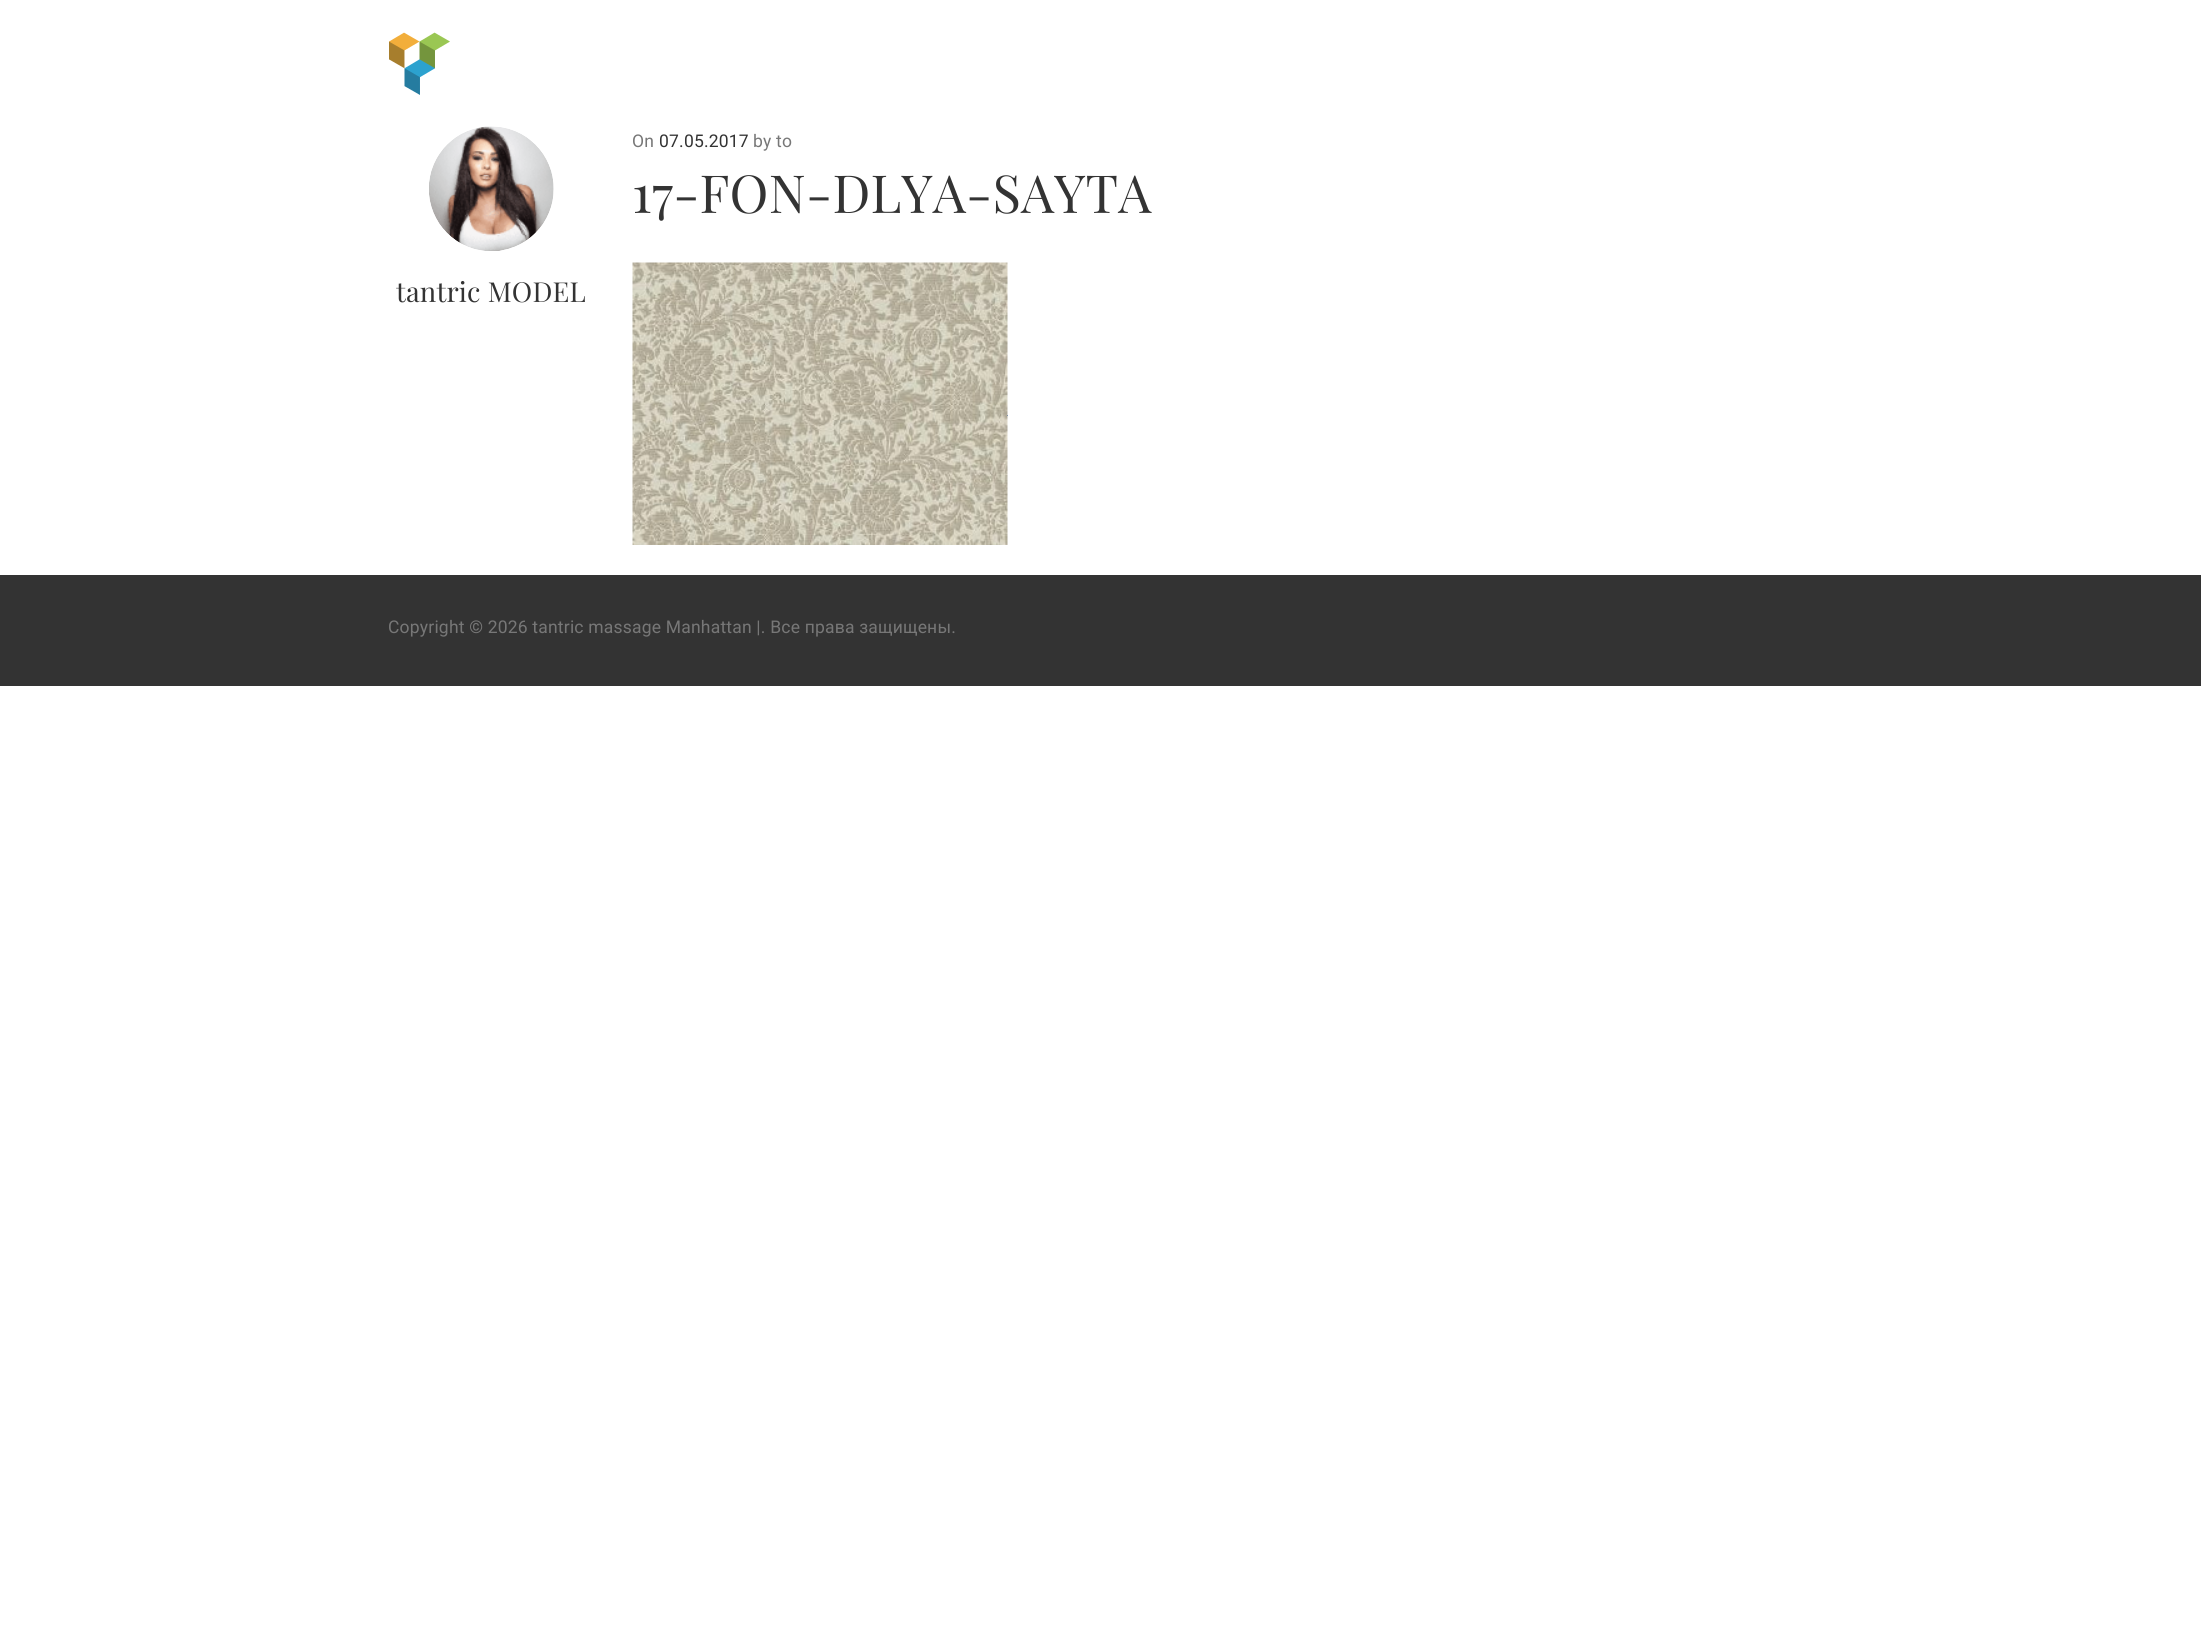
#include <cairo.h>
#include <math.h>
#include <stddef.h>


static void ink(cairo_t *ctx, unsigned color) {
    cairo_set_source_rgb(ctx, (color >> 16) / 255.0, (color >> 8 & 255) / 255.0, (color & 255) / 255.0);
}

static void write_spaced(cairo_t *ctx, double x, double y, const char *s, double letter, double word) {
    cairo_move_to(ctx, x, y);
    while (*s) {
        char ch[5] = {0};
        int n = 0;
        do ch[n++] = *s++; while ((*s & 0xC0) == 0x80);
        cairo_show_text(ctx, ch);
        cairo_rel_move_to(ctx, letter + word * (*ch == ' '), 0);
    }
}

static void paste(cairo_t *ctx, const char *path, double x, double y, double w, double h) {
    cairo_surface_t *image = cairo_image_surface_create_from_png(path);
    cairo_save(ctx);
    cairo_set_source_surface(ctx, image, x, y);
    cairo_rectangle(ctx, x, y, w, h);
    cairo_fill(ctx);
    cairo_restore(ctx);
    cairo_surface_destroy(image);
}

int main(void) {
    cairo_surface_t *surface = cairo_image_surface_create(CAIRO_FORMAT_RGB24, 2201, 1641);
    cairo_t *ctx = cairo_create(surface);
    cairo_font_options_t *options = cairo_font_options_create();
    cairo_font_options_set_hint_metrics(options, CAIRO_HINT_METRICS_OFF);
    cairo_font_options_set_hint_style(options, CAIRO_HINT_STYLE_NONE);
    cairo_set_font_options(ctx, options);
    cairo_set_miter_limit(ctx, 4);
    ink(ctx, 0xFFFFFF);
    cairo_paint(ctx);
    paste(ctx, "media/1.png", 389, 32, 61, 63);
    cairo_select_font_face(ctx, "Roboto", CAIRO_FONT_SLANT_NORMAL, CAIRO_FONT_WEIGHT_NORMAL);
    cairo_set_font_size(ctx, 17.5);
    ink(ctx, 0x777777);
    write_spaced(ctx, 632, 147, "On", 0.2, 0);
    ink(ctx, 0x333333);
    write_spaced(ctx, 659, 147, "07.05.2017", 0.2, 0);
    ink(ctx, 0x777777);
    write_spaced(ctx, 753, 147, "by to", 0.2, 0);
    cairo_select_font_face(ctx, "Playfair Display", CAIRO_FONT_SLANT_NORMAL, CAIRO_FONT_WEIGHT_NORMAL);
    cairo_set_font_size(ctx, 52.5);
    ink(ctx, 0x333333);
    write_spaced(ctx, 632, 213, "17-FON-DLYA-SAYTA", 0.2, 0);
    ink(ctx, 0x557CBF);
    cairo_rectangle(ctx, 1007, 415, 1, 1);
    cairo_fill(ctx);
    paste(ctx, "media/2.png", 632, 262, 376, 283);
    paste(ctx, "media/3.png", 429, 126, 125, 125);
    cairo_set_font_size(ctx, 27.5);
    ink(ctx, 0x333333);
    write_spaced(ctx, 396, 302, "tantric MODEL", 0.2, 0);
    cairo_rectangle(ctx, 0, 575, 2201, 111);
    cairo_fill(ctx);
    cairo_select_font_face(ctx, "Roboto", CAIRO_FONT_SLANT_NORMAL, CAIRO_FONT_WEIGHT_NORMAL);
    cairo_set_font_size(ctx, 17.5);
    ink(ctx, 0x777777);
    write_spaced(ctx, 388, 633, "Copyright © 2026 tantric massage Manhattan |. Все права защищены.", 0.2, 0);
    cairo_surface_write_to_png(surface, "image.png");
    cairo_font_options_destroy(options);
    cairo_destroy(ctx);
    cairo_surface_destroy(surface);
    return 0;
}
